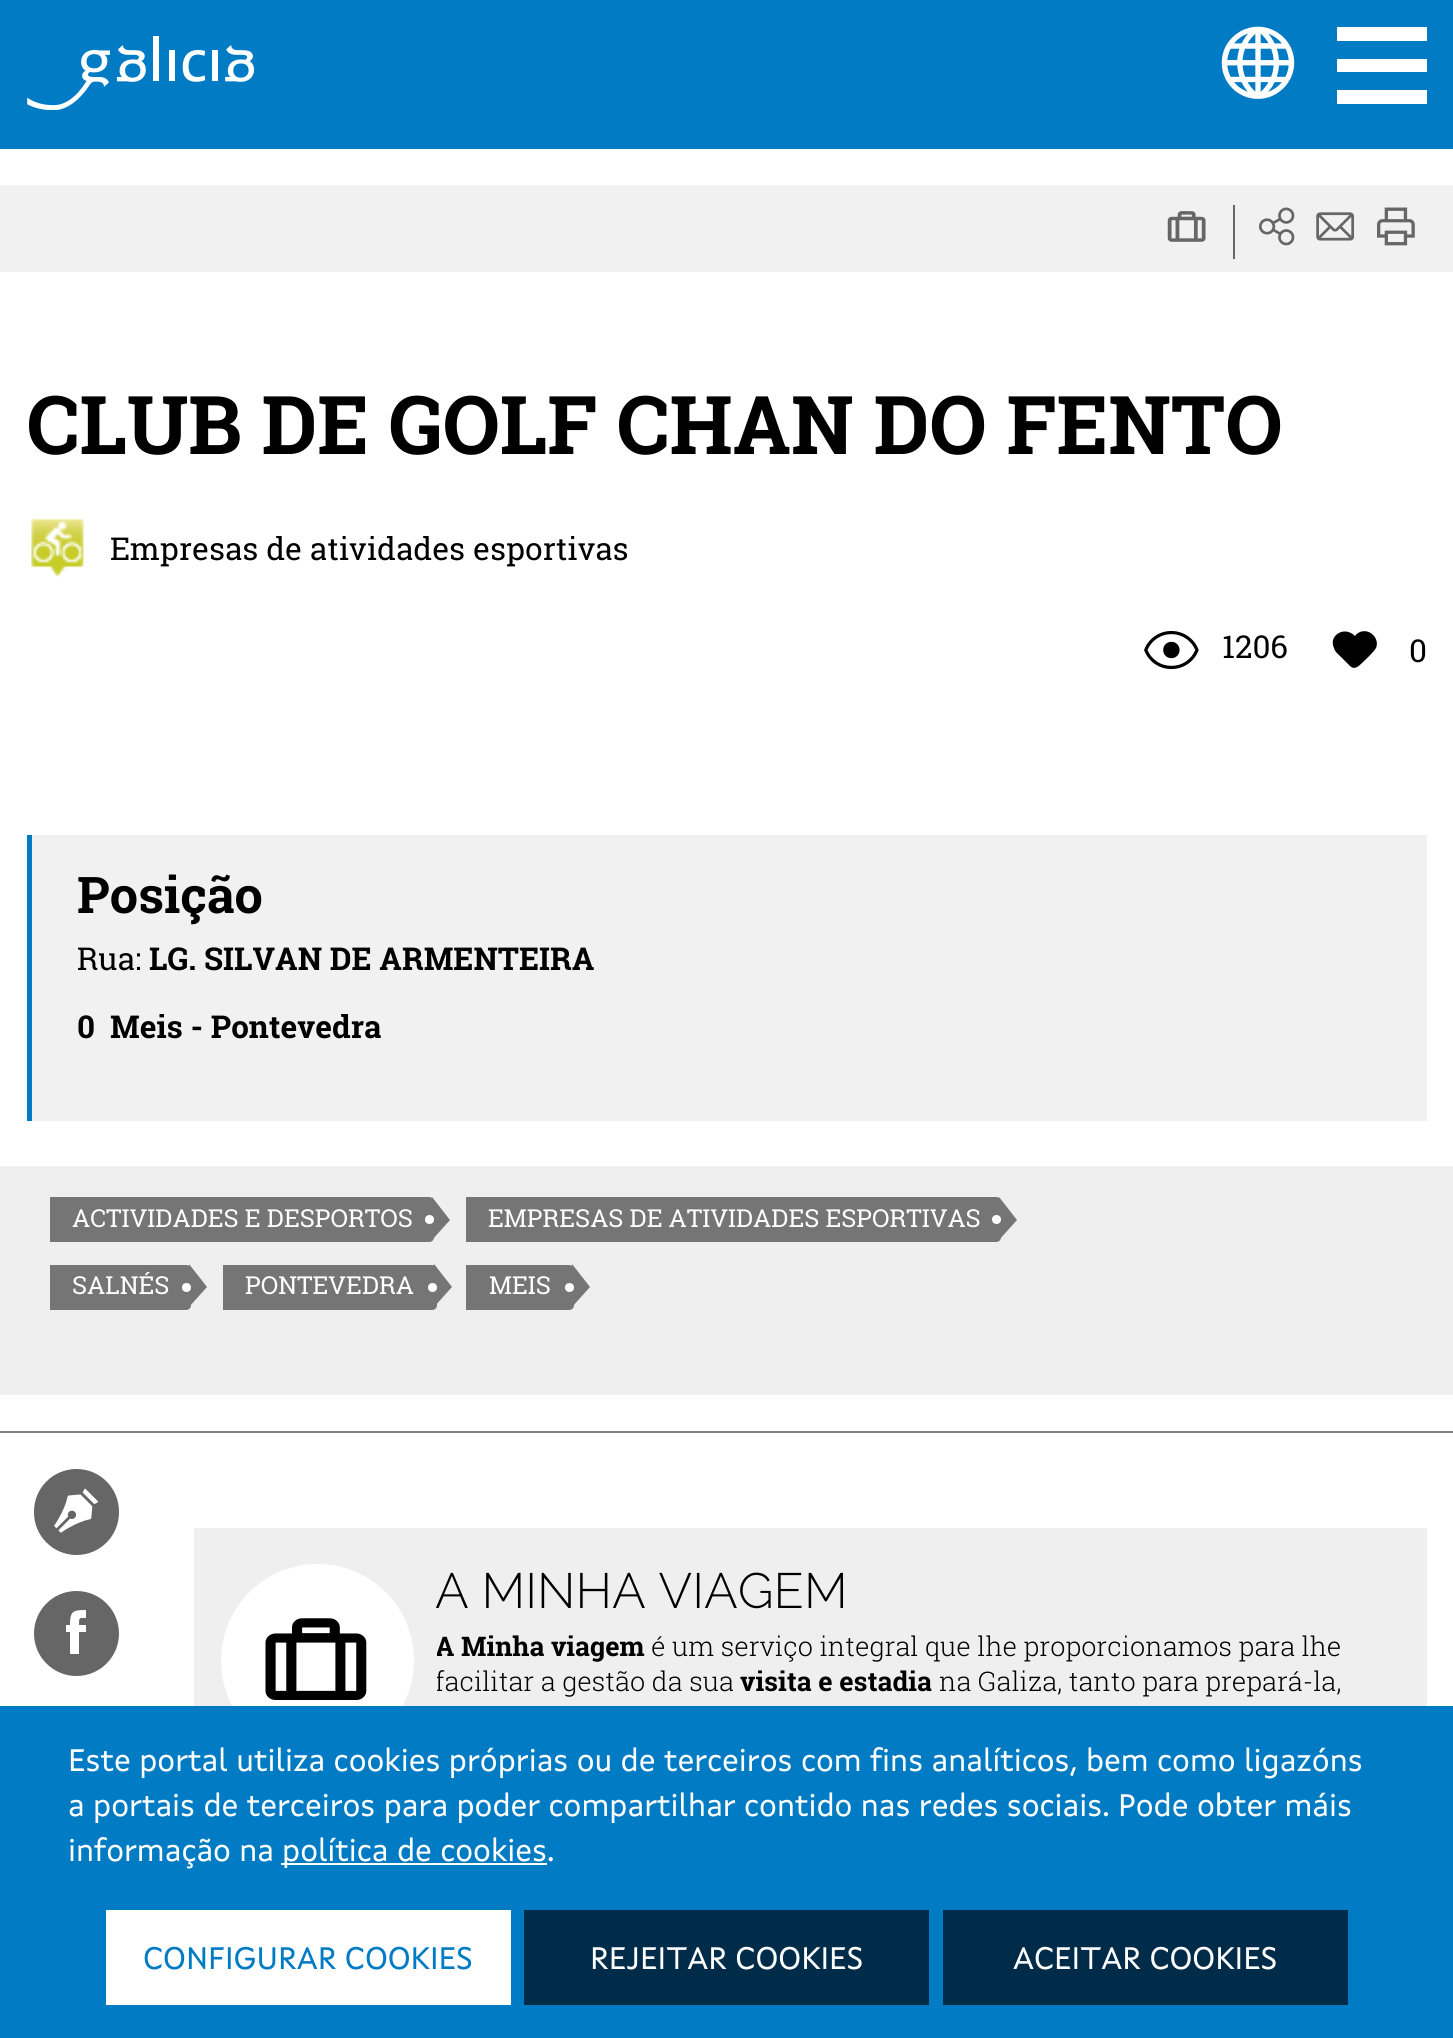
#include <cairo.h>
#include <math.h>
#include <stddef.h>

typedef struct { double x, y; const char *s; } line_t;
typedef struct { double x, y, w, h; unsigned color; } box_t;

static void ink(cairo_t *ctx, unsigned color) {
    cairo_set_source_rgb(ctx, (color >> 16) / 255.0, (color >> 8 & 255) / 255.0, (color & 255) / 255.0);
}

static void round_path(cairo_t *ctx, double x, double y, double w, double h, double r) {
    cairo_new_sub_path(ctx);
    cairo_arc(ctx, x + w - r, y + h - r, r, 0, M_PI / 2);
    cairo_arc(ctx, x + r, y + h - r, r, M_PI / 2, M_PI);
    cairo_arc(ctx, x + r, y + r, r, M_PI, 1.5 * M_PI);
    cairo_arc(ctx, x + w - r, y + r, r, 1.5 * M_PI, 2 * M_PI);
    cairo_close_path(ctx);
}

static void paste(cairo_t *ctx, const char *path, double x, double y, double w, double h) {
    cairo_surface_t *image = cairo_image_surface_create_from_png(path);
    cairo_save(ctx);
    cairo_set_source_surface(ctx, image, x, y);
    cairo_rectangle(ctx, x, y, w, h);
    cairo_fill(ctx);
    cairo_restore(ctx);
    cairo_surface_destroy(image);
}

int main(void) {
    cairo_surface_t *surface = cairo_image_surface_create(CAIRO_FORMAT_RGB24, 1453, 2038);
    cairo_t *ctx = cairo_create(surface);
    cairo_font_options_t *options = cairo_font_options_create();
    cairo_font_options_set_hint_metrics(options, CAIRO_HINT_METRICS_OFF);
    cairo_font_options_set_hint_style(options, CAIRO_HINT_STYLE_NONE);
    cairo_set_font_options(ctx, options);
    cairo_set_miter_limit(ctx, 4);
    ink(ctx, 0xFFFFFF);
    cairo_paint(ctx);
    ink(ctx, 0x007BC4);
    cairo_rectangle(ctx, 0, 0, 1453, 149);
    cairo_fill(ctx);
    paste(ctx, "media/1.png", 27, 36, 227, 74);
    paste(ctx, "media/2.png", 1221, 26, 74, 73);
    {
        static const box_t items[] = {
            {1337, 27, 90, 14, 0xFFFFFF},
            {1337, 59, 90, 13, 0xFFFFFF},
            {1337, 90, 90, 14, 0xFFFFFF},
            {0, 185, 1453, 87, 0xF1F1F1},
            {1233, 205, 2, 54, 0x666666},
        };
        for (size_t i = 0; i < sizeof items / sizeof *items; i++) {
            ink(ctx, items[i].color);
            cairo_rectangle(ctx, items[i].x, items[i].y, items[i].w, items[i].h);
            cairo_fill(ctx);
        }
    }
    paste(ctx, "media/3.png", 1167, 211, 39, 31);
    paste(ctx, "media/4.png", 1259, 207, 36, 39);
    paste(ctx, "media/5.png", 1316, 212, 39, 29);
    paste(ctx, "media/6.png", 1377, 207, 38, 39);
    cairo_select_font_face(ctx, "Roboto Slab", CAIRO_FONT_SLANT_NORMAL, CAIRO_FONT_WEIGHT_BOLD);
    cairo_set_font_size(ctx, 81);
    ink(ctx, 0x000000);
    cairo_move_to(ctx, 27, 454);
    cairo_show_text(ctx, "CLUB DE GOLF CHAN DO FENTO");
    paste(ctx, "media/7.png", 31, 518, 53, 59);
    cairo_select_font_face(ctx, "Roboto Slab", CAIRO_FONT_SLANT_NORMAL, CAIRO_FONT_WEIGHT_NORMAL);
    cairo_set_font_size(ctx, 31.5);
    cairo_move_to(ctx, 110, 560);
    cairo_show_text(ctx, "Empresas de atividades esportivas");
    paste(ctx, "media/8.png", 1144, 631, 55, 39);
    cairo_move_to(ctx, 1222, 658);
    cairo_show_text(ctx, "1206");
    cairo_new_path(ctx);
    cairo_move_to(ctx, 1350, 666);
    cairo_curve_to(ctx, 1354, 670, 1358, 667, 1362, 663);
    cairo_curve_to(ctx, 1365, 660, 1373, 653, 1376, 648);
    cairo_curve_to(ctx, 1380, 639, 1370, 628, 1360, 632);
    cairo_curve_to(ctx, 1358, 633, 1356, 634, 1355, 636);
    cairo_curve_to(ctx, 1344, 625, 1328, 636, 1334, 648);
    cairo_curve_to(ctx, 1335, 652, 1338, 654, 1341, 657);
    cairo_close_path(ctx);
    cairo_fill(ctx);
    cairo_move_to(ctx, 1409, 662);
    cairo_show_text(ctx, "0");
    ink(ctx, 0xF1F1F1);
    cairo_rectangle(ctx, 32, 835, 1395, 286);
    cairo_fill(ctx);
    ink(ctx, 0x007BC4);
    cairo_rectangle(ctx, 27, 835, 5, 286);
    cairo_fill(ctx);
    cairo_select_font_face(ctx, "Roboto Slab", CAIRO_FONT_SLANT_NORMAL, CAIRO_FONT_WEIGHT_BOLD);
    cairo_set_font_size(ctx, 50.5);
    ink(ctx, 0x000000);
    cairo_move_to(ctx, 77, 913);
    cairo_show_text(ctx, "Posição");
    cairo_select_font_face(ctx, "Roboto Slab", CAIRO_FONT_SLANT_NORMAL, CAIRO_FONT_WEIGHT_NORMAL);
    cairo_set_font_size(ctx, 31.5);
    cairo_move_to(ctx, 77, 970);
    cairo_show_text(ctx, "Rua:");
    cairo_select_font_face(ctx, "Roboto Slab", CAIRO_FONT_SLANT_NORMAL, CAIRO_FONT_WEIGHT_BOLD);
    {
        static const line_t items[] = {
            {149, 970, "LG. SILVAN DE ARMENTEIRA"},
            {77, 1038, "0"},
            {110, 1038, "Meis - Pontevedra"},
        };
        for (size_t i = 0; i < sizeof items / sizeof *items; i++) {
            cairo_move_to(ctx, items[i].x, items[i].y);
            cairo_show_text(ctx, items[i].s);
        }
    }
    ink(ctx, 0xEFEFEF);
    cairo_rectangle(ctx, 0, 1166, 1453, 229);
    cairo_fill(ctx);
    ink(ctx, 0x757575);
    cairo_new_path(ctx);
    cairo_move_to(ctx, 50, 1197);
    cairo_line_to(ctx, 429, 1197);
    cairo_curve_to(ctx, 432, 1197, 434, 1199, 434, 1202);
    cairo_line_to(ctx, 434, 1237);
    cairo_curve_to(ctx, 434, 1240, 432, 1242, 429, 1242);
    cairo_line_to(ctx, 50, 1242);
    cairo_close_path(ctx);
    cairo_fill(ctx);
    cairo_select_font_face(ctx, "Roboto Slab", CAIRO_FONT_SLANT_NORMAL, CAIRO_FONT_WEIGHT_NORMAL);
    cairo_set_font_size(ctx, 24.75);
    ink(ctx, 0xFFFFFF);
    cairo_move_to(ctx, 72, 1227);
    cairo_show_text(ctx, "ACTIVIDADES E DESPORTOS");
    ink(ctx, 0x757575);
    cairo_new_path(ctx);
    cairo_move_to(ctx, 432, 1240);
    cairo_line_to(ctx, 432, 1197);
    cairo_line_to(ctx, 450, 1220);
    cairo_close_path(ctx);
    cairo_fill(ctx);
    ink(ctx, 0xFFFFFF);
    cairo_arc(ctx, 429.5, 1219.5, 4.5, 0, 2 * M_PI);
    cairo_fill(ctx);
    ink(ctx, 0x757575);
    cairo_new_path(ctx);
    cairo_move_to(ctx, 466, 1197);
    cairo_line_to(ctx, 996, 1197);
    cairo_curve_to(ctx, 999, 1197, 1001, 1199, 1001, 1202);
    cairo_line_to(ctx, 1001, 1237);
    cairo_curve_to(ctx, 1001, 1240, 999, 1242, 996, 1242);
    cairo_line_to(ctx, 466, 1242);
    cairo_close_path(ctx);
    cairo_fill(ctx);
    ink(ctx, 0xFFFFFF);
    cairo_move_to(ctx, 488, 1227);
    cairo_show_text(ctx, "EMPRESAS DE ATIVIDADES ESPORTIVAS");
    ink(ctx, 0x757575);
    cairo_new_path(ctx);
    cairo_move_to(ctx, 999, 1240);
    cairo_line_to(ctx, 999, 1197);
    cairo_line_to(ctx, 1017, 1220);
    cairo_close_path(ctx);
    cairo_fill(ctx);
    ink(ctx, 0xFFFFFF);
    cairo_arc(ctx, 996.5, 1219.5, 4.5, 0, 2 * M_PI);
    cairo_fill(ctx);
    ink(ctx, 0x757575);
    cairo_new_path(ctx);
    cairo_move_to(ctx, 50, 1265);
    cairo_line_to(ctx, 186, 1265);
    cairo_curve_to(ctx, 189, 1265, 191, 1267, 191, 1270);
    cairo_line_to(ctx, 191, 1305);
    cairo_curve_to(ctx, 191, 1308, 189, 1310, 186, 1310);
    cairo_line_to(ctx, 50, 1310);
    cairo_close_path(ctx);
    cairo_fill(ctx);
    ink(ctx, 0xFFFFFF);
    cairo_move_to(ctx, 72, 1294);
    cairo_show_text(ctx, "SALNÉS");
    ink(ctx, 0x757575);
    cairo_new_path(ctx);
    cairo_move_to(ctx, 189, 1307);
    cairo_line_to(ctx, 189, 1264);
    cairo_line_to(ctx, 207, 1287);
    cairo_close_path(ctx);
    cairo_fill(ctx);
    ink(ctx, 0xFFFFFF);
    cairo_arc(ctx, 186.5, 1287.5, 4.5, 0, 2 * M_PI);
    cairo_fill(ctx);
    ink(ctx, 0x757575);
    cairo_new_path(ctx);
    cairo_move_to(ctx, 223, 1265);
    cairo_line_to(ctx, 432, 1265);
    cairo_curve_to(ctx, 435, 1265, 437, 1267, 437, 1270);
    cairo_line_to(ctx, 437, 1305);
    cairo_curve_to(ctx, 437, 1308, 435, 1310, 432, 1310);
    cairo_line_to(ctx, 223, 1310);
    cairo_close_path(ctx);
    cairo_fill(ctx);
    ink(ctx, 0xFFFFFF);
    cairo_move_to(ctx, 245, 1294);
    cairo_show_text(ctx, "PONTEVEDRA");
    ink(ctx, 0x757575);
    cairo_new_path(ctx);
    cairo_move_to(ctx, 434, 1307);
    cairo_line_to(ctx, 434, 1264);
    cairo_line_to(ctx, 452, 1287);
    cairo_close_path(ctx);
    cairo_fill(ctx);
    ink(ctx, 0xFFFFFF);
    cairo_arc(ctx, 432.5, 1287.5, 4.5, 0, 2 * M_PI);
    cairo_fill(ctx);
    ink(ctx, 0x757575);
    cairo_new_path(ctx);
    cairo_move_to(ctx, 466, 1265);
    cairo_line_to(ctx, 569, 1265);
    cairo_curve_to(ctx, 572, 1265, 574, 1267, 574, 1270);
    cairo_line_to(ctx, 574, 1305);
    cairo_curve_to(ctx, 574, 1308, 572, 1310, 569, 1310);
    cairo_line_to(ctx, 466, 1310);
    cairo_close_path(ctx);
    cairo_fill(ctx);
    ink(ctx, 0xFFFFFF);
    cairo_move_to(ctx, 489, 1294);
    cairo_show_text(ctx, "MEIS");
    ink(ctx, 0x757575);
    cairo_new_path(ctx);
    cairo_move_to(ctx, 572, 1307);
    cairo_line_to(ctx, 572, 1264);
    cairo_line_to(ctx, 590, 1287);
    cairo_close_path(ctx);
    cairo_fill(ctx);
    ink(ctx, 0xFFFFFF);
    cairo_arc(ctx, 569.5, 1287.5, 4.5, 0, 2 * M_PI);
    cairo_fill(ctx);
    ink(ctx, 0x7F7F7F);
    cairo_rectangle(ctx, 0, 1431, 1453, 2);
    cairo_fill(ctx);
    ink(ctx, 0x666666);
    round_path(ctx, 34, 1469, 85, 86, 42.5);
    cairo_fill(ctx);
    paste(ctx, "media/9.png", 54, 1488, 45, 45);
    cairo_arc(ctx, 76.5, 1633.5, 42.5, 0, 2 * M_PI);
    cairo_fill(ctx);
    ink(ctx, 0xFFFFFF);
    cairo_new_path(ctx);
    cairo_move_to(ctx, 79, 1654);
    cairo_line_to(ctx, 70, 1654);
    cairo_line_to(ctx, 70, 1632);
    cairo_line_to(ctx, 66, 1632);
    cairo_line_to(ctx, 66, 1625);
    cairo_line_to(ctx, 70, 1625);
    cairo_curve_to(ctx, 70, 1611, 73, 1610, 86, 1610);
    cairo_line_to(ctx, 86, 1618);
    cairo_curve_to(ctx, 79, 1618, 79, 1617, 79, 1625);
    cairo_line_to(ctx, 86, 1625);
    cairo_line_to(ctx, 86, 1632);
    cairo_line_to(ctx, 79, 1632);
    cairo_close_path(ctx);
    cairo_fill(ctx);
    ink(ctx, 0xEFEFEF);
    cairo_rectangle(ctx, 194, 1528, 1233, 178);
    cairo_fill(ctx);
    ink(ctx, 0xFFFFFF);
    cairo_arc(ctx, 317.5, 1660.5, 96.5, 0, 2 * M_PI);
    cairo_fill(ctx);
    paste(ctx, "media/10.png", 265, 1618, 102, 82);
    cairo_select_font_face(ctx, "Raleway Light", CAIRO_FONT_SLANT_NORMAL, CAIRO_FONT_WEIGHT_NORMAL);
    cairo_set_font_size(ctx, 49.5);
    ink(ctx, 0x000000);
    cairo_move_to(ctx, 435, 1608);
    cairo_show_text(ctx, "A MINHA VIAGEM");
    cairo_save(ctx);
    cairo_rectangle(ctx, 437, 1564, 963, 229);
    cairo_clip(ctx);
    cairo_select_font_face(ctx, "Roboto Slab", CAIRO_FONT_SLANT_NORMAL, CAIRO_FONT_WEIGHT_BOLD);
    cairo_set_font_size(ctx, 27);
    cairo_move_to(ctx, 435, 1656);
    cairo_show_text(ctx, "A Minha viagem");
    cairo_restore(ctx);
    cairo_select_font_face(ctx, "Roboto Slab Light", CAIRO_FONT_SLANT_NORMAL, CAIRO_FONT_WEIGHT_NORMAL);
    cairo_set_font_size(ctx, 27);
    cairo_move_to(ctx, 651, 1656);
    cairo_show_text(ctx, "é um serviço integral que lhe proporcionamos para lhe");
    cairo_save(ctx);
    cairo_rectangle(ctx, 437, 1564, 963, 229);
    cairo_clip(ctx);
    cairo_move_to(ctx, 435, 1691);
    cairo_show_text(ctx, "facilitar a gestão da sua");
    cairo_restore(ctx);
    cairo_select_font_face(ctx, "Roboto Slab", CAIRO_FONT_SLANT_NORMAL, CAIRO_FONT_WEIGHT_BOLD);
    cairo_move_to(ctx, 740, 1691);
    cairo_show_text(ctx, "visita e estadia");
    cairo_select_font_face(ctx, "Roboto Slab Light", CAIRO_FONT_SLANT_NORMAL, CAIRO_FONT_WEIGHT_NORMAL);
    cairo_move_to(ctx, 939, 1691);
    cairo_show_text(ctx, "na Galiza, tanto para prepará-la,");
    ink(ctx, 0x007BC4);
    cairo_rectangle(ctx, 0, 1706, 1453, 332);
    cairo_fill(ctx);
    cairo_select_font_face(ctx, "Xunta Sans", CAIRO_FONT_SLANT_NORMAL, CAIRO_FONT_WEIGHT_NORMAL);
    cairo_set_font_size(ctx, 31.5);
    ink(ctx, 0xFFFFFF);
    {
        static const line_t items[] = {
            {68, 1771, "Este portal utiliza cookies próprias ou de terceiros com fins analíticos, bem como ligazóns"},
            {68, 1816, "a portais de terceiros para poder compartilhar contido nas redes sociais. Pode obter máis"},
            {68, 1861, "informação na"},
        };
        for (size_t i = 0; i < sizeof items / sizeof *items; i++) {
            cairo_move_to(ctx, items[i].x, items[i].y);
            cairo_show_text(ctx, items[i].s);
        }
    }
    cairo_rectangle(ctx, 281, 1863, 266, 2);
    cairo_fill(ctx);
    cairo_move_to(ctx, 282, 1861);
    cairo_show_text(ctx, "política de cookies.");
    cairo_rectangle(ctx, 106, 1910, 405, 95);
    cairo_fill(ctx);
    ink(ctx, 0x007BC4);
    cairo_move_to(ctx, 143, 1969);
    cairo_show_text(ctx, "CONFIGURAR COOKIES");
    ink(ctx, 0x002B49);
    cairo_rectangle(ctx, 524, 1910, 405, 95);
    cairo_fill(ctx);
    ink(ctx, 0xFFFFFF);
    cairo_move_to(ctx, 590, 1969);
    cairo_show_text(ctx, "REJEITAR COOKIES");
    ink(ctx, 0x002B49);
    cairo_rectangle(ctx, 943, 1910, 405, 95);
    cairo_fill(ctx);
    ink(ctx, 0xFFFFFF);
    cairo_move_to(ctx, 1013, 1969);
    cairo_show_text(ctx, "ACEITAR COOKIES");
    cairo_surface_write_to_png(surface, "image.png");
    cairo_font_options_destroy(options);
    cairo_destroy(ctx);
    cairo_surface_destroy(surface);
    return 0;
}
